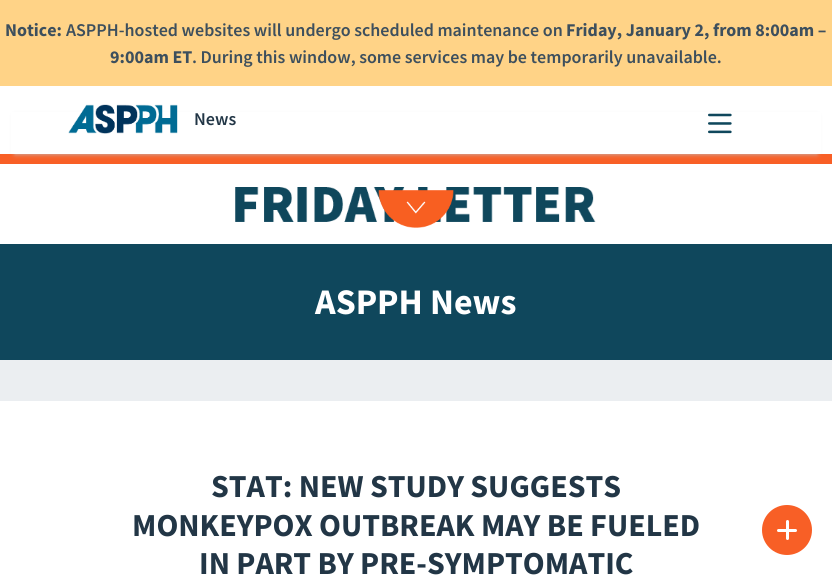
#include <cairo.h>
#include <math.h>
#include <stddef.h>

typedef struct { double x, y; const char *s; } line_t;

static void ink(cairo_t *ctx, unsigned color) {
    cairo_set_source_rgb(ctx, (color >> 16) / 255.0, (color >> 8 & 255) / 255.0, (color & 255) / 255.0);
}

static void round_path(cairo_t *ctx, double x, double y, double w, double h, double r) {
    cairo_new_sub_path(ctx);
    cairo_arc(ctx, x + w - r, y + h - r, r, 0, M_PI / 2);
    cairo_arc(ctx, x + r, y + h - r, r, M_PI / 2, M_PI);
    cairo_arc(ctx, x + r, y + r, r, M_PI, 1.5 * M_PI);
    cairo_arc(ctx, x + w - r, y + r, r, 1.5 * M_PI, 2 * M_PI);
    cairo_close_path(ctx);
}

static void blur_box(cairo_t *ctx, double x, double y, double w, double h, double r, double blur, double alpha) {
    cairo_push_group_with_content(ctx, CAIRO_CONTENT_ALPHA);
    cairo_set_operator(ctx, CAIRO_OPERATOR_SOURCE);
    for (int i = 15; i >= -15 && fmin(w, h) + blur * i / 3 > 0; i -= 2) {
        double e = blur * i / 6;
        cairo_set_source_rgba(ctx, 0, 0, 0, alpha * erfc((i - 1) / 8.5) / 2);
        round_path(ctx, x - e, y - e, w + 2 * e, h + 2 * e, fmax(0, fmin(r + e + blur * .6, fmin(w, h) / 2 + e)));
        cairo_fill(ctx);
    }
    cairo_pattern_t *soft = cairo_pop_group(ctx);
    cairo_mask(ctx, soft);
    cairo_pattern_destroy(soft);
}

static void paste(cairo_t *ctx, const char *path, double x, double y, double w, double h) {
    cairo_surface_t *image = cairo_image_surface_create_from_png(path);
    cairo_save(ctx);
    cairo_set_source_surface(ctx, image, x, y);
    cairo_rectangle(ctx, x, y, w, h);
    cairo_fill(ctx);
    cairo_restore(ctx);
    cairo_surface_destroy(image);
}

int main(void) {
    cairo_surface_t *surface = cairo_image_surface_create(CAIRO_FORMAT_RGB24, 832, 575);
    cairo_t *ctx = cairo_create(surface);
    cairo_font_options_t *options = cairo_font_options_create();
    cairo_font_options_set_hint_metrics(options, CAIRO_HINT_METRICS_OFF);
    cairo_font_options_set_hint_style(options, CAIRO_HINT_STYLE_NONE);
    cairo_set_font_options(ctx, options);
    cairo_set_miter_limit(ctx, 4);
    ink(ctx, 0xFFFFFF);
    cairo_paint(ctx);
    ink(ctx, 0xFFD387);
    cairo_rectangle(ctx, 0, 0, 832, 86);
    cairo_fill(ctx);
    cairo_select_font_face(ctx, "Source Sans Pro", CAIRO_FONT_SLANT_NORMAL, CAIRO_FONT_WEIGHT_BOLD);
    cairo_set_font_size(ctx, 18);
    ink(ctx, 0x3D4F5D);
    cairo_move_to(ctx, 5, 36);
    cairo_show_text(ctx, "Notice:");
    cairo_select_font_face(ctx, "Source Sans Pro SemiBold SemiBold", CAIRO_FONT_SLANT_NORMAL, CAIRO_FONT_WEIGHT_NORMAL);
    cairo_move_to(ctx, 66, 36);
    cairo_show_text(ctx, "ASPPH-hosted websites will undergo scheduled maintenance on");
    cairo_select_font_face(ctx, "Source Sans Pro", CAIRO_FONT_SLANT_NORMAL, CAIRO_FONT_WEIGHT_BOLD);
    cairo_move_to(ctx, 566, 36);
    cairo_show_text(ctx, "Friday, January 2, from 8:00am –");
    cairo_move_to(ctx, 110, 63);
    cairo_show_text(ctx, "9:00am ET");
    cairo_select_font_face(ctx, "Source Sans Pro SemiBold SemiBold", CAIRO_FONT_SLANT_NORMAL, CAIRO_FONT_WEIGHT_NORMAL);
    cairo_move_to(ctx, 192, 63);
    cairo_show_text(ctx, ". During this window, some services may be temporarily unavailable.");
    ink(ctx, 0xF85F26);
    cairo_rectangle(ctx, 0, 154, 832, 10);
    cairo_fill(ctx);
    ink(ctx, 0xBCC6CE);
    blur_box(ctx, 15, 116, 802, 38, 0, 2.5, 1);
    ink(ctx, 0xFFFFFF);
    cairo_rectangle(ctx, 11, 112, 810, 42);
    cairo_fill(ctx);
    paste(ctx, "media/1.png", 68, 104, 110, 30);
    ink(ctx, 0x223646);
    cairo_move_to(ctx, 194, 125);
    cairo_show_text(ctx, "News");
    paste(ctx, "media/2.png", 708, 113, 24, 21);
    paste(ctx, "media/3.png", 235, 187, 361, 35);
    paste(ctx, "media/4.png", 378, 190, 76, 38);
    ink(ctx, 0x0F475C);
    cairo_rectangle(ctx, 0, 244, 832, 116);
    cairo_fill(ctx);
    cairo_select_font_face(ctx, "Source Sans Pro", CAIRO_FONT_SLANT_NORMAL, CAIRO_FONT_WEIGHT_BOLD);
    cairo_set_font_size(ctx, 36);
    ink(ctx, 0xFFFFFF);
    cairo_move_to(ctx, 315, 314);
    cairo_show_text(ctx, "ASPPH News");
    ink(ctx, 0xEBEEF1);
    cairo_rectangle(ctx, 0, 360, 832, 41);
    cairo_fill(ctx);
    cairo_set_font_size(ctx, 32);
    ink(ctx, 0x223646);
    {
        static const line_t items[] = {
            {211, 497, "STAT: NEW STUDY SUGGESTS"},
            {132, 536, "MONKEYPOX OUTBREAK MAY BE FUELED"},
            {199, 574, "IN PART BY PRE-SYMPTOMATIC"},
        };
        for (size_t i = 0; i < sizeof items / sizeof *items; i++) {
            cairo_move_to(ctx, items[i].x, items[i].y);
            cairo_show_text(ctx, items[i].s);
        }
    }
    ink(ctx, 0xF85F26);
    cairo_new_path(ctx);
    cairo_arc(ctx, 787, 530, 25, 0, 2 * M_PI);
    cairo_fill(ctx);
    ink(ctx, 0xFFFFFF);
    round_path(ctx, 786, 520, 3, 20, 1.5);
    cairo_fill(ctx);
    round_path(ctx, 777, 529, 20, 3, 1.5);
    cairo_fill(ctx);
    cairo_surface_write_to_png(surface, "image.png");
    cairo_font_options_destroy(options);
    cairo_destroy(ctx);
    cairo_surface_destroy(surface);
    return 0;
}
